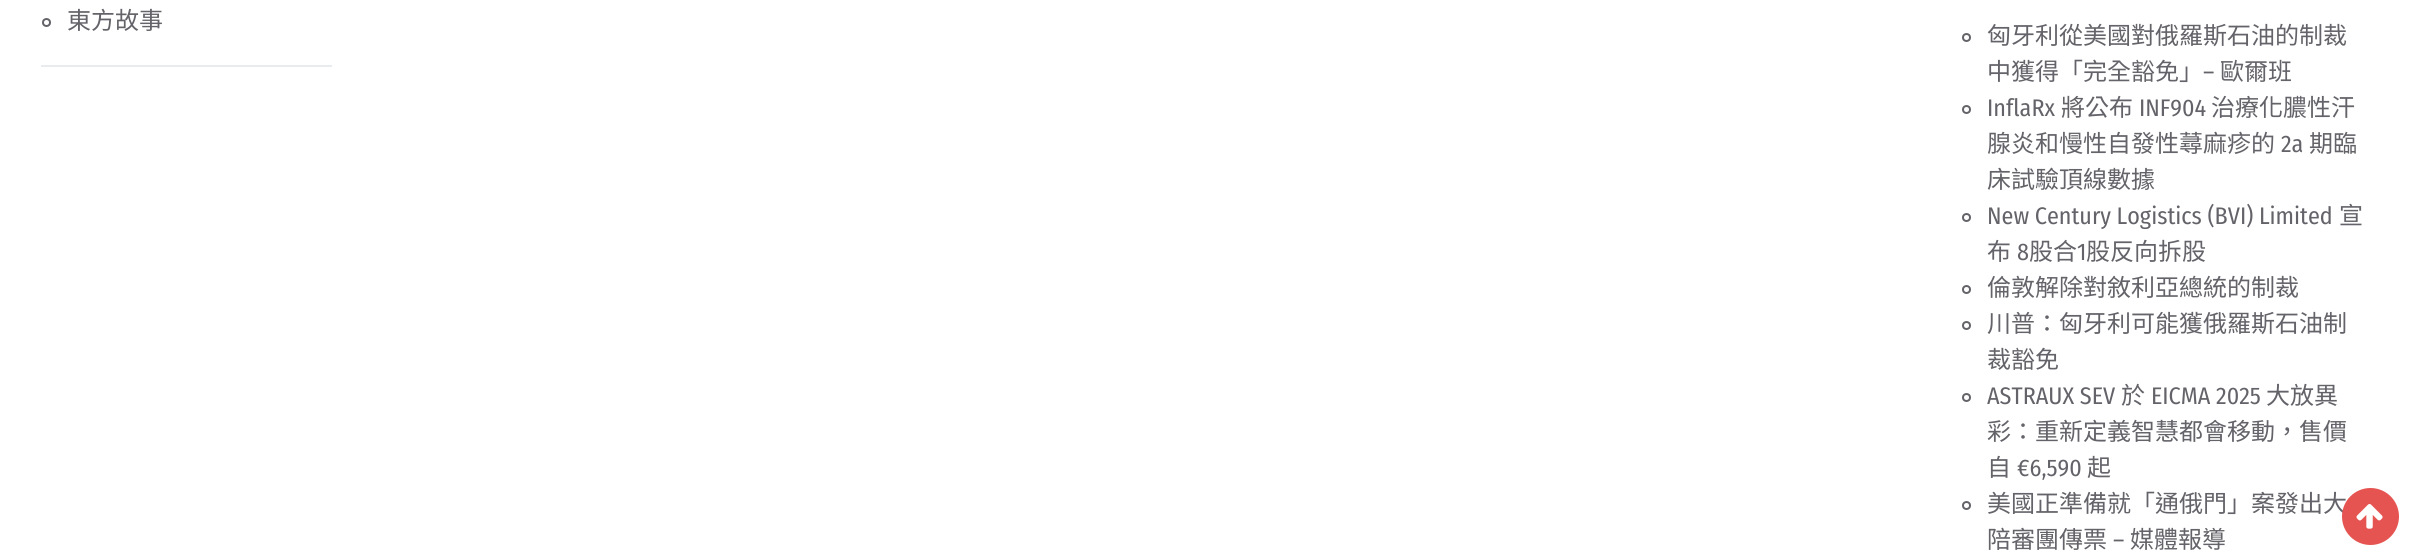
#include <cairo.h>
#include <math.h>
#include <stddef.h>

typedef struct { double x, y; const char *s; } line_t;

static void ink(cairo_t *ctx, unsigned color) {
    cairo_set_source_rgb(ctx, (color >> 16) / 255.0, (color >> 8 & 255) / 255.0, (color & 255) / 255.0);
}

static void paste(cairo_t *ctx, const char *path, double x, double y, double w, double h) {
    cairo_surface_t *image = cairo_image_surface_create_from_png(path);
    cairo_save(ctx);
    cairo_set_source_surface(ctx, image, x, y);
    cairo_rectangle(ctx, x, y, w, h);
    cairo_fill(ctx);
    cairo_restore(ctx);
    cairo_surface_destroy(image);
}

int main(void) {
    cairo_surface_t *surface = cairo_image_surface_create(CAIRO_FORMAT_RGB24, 2410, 556);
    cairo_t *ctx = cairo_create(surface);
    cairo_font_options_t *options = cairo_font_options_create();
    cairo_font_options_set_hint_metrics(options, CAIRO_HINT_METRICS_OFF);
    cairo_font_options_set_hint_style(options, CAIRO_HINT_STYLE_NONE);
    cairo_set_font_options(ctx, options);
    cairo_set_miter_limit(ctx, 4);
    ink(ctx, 0xFFFFFF);
    cairo_paint(ctx);
    ink(ctx, 0xE9ECEF);
    cairo_rectangle(ctx, 41, 65, 291, 2);
    cairo_fill(ctx);
    cairo_arc(ctx, 46.5, 22.5, 3.5, 0, 2 * M_PI);
    ink(ctx, 0x636369);
    cairo_stroke(ctx);
    cairo_select_font_face(ctx, "Noto Sans CJK TC", CAIRO_FONT_SLANT_NORMAL, CAIRO_FONT_WEIGHT_NORMAL);
    cairo_set_font_size(ctx, 24);
    cairo_move_to(ctx, 67, 29);
    cairo_show_text(ctx, "東方故事");
    cairo_new_path(ctx);
    cairo_arc(ctx, 1966.5, 37.5, 3.5, 0, 2 * M_PI);
    cairo_stroke(ctx);
    cairo_move_to(ctx, 1987, 44);
    cairo_show_text(ctx, "匈牙利從美國對俄羅斯石油的制裁");
    cairo_move_to(ctx, 1987, 80);
    cairo_show_text(ctx, "中獲得「完全豁免」");
    cairo_select_font_face(ctx, "Fira Sans Condensed", CAIRO_FONT_SLANT_NORMAL, CAIRO_FONT_WEIGHT_NORMAL);
    cairo_move_to(ctx, 2203, 80);
    cairo_show_text(ctx, "–");
    cairo_select_font_face(ctx, "Noto Sans CJK TC", CAIRO_FONT_SLANT_NORMAL, CAIRO_FONT_WEIGHT_NORMAL);
    cairo_move_to(ctx, 2220, 80);
    cairo_show_text(ctx, "歐爾班");
    cairo_new_path(ctx);
    cairo_arc(ctx, 1966.5, 109.5, 3.5, 0, 2 * M_PI);
    cairo_stroke(ctx);
    cairo_select_font_face(ctx, "Fira Sans Condensed", CAIRO_FONT_SLANT_NORMAL, CAIRO_FONT_WEIGHT_NORMAL);
    cairo_move_to(ctx, 1987, 116);
    cairo_show_text(ctx, "InflaRx");
    cairo_select_font_face(ctx, "Noto Sans CJK TC", CAIRO_FONT_SLANT_NORMAL, CAIRO_FONT_WEIGHT_NORMAL);
    cairo_move_to(ctx, 2061, 116);
    cairo_show_text(ctx, "將公布");
    cairo_select_font_face(ctx, "Fira Sans Condensed", CAIRO_FONT_SLANT_NORMAL, CAIRO_FONT_WEIGHT_NORMAL);
    cairo_move_to(ctx, 2139, 116);
    cairo_show_text(ctx, "INF904");
    cairo_select_font_face(ctx, "Noto Sans CJK TC", CAIRO_FONT_SLANT_NORMAL, CAIRO_FONT_WEIGHT_NORMAL);
    cairo_move_to(ctx, 2211, 116);
    cairo_show_text(ctx, "治療化膿性汗");
    cairo_move_to(ctx, 1987, 152);
    cairo_show_text(ctx, "腺炎和慢性自發性蕁麻疹的");
    cairo_select_font_face(ctx, "Fira Sans Condensed", CAIRO_FONT_SLANT_NORMAL, CAIRO_FONT_WEIGHT_NORMAL);
    cairo_move_to(ctx, 2281, 152);
    cairo_show_text(ctx, "2a");
    cairo_select_font_face(ctx, "Noto Sans CJK TC", CAIRO_FONT_SLANT_NORMAL, CAIRO_FONT_WEIGHT_NORMAL);
    cairo_move_to(ctx, 2309, 152);
    cairo_show_text(ctx, "期臨");
    cairo_move_to(ctx, 1987, 188);
    cairo_show_text(ctx, "床試驗頂線數據");
    cairo_new_path(ctx);
    cairo_arc(ctx, 1966.5, 217.5, 3.5, 0, 2 * M_PI);
    cairo_stroke(ctx);
    cairo_select_font_face(ctx, "Fira Sans Condensed", CAIRO_FONT_SLANT_NORMAL, CAIRO_FONT_WEIGHT_NORMAL);
    cairo_move_to(ctx, 1987, 224);
    cairo_show_text(ctx, "New Century Logistics (BVI) Limited");
    cairo_select_font_face(ctx, "Noto Sans CJK TC", CAIRO_FONT_SLANT_NORMAL, CAIRO_FONT_WEIGHT_NORMAL);
    cairo_move_to(ctx, 2339, 224);
    cairo_show_text(ctx, "宣");
    cairo_move_to(ctx, 1987, 260);
    cairo_show_text(ctx, "布");
    cairo_select_font_face(ctx, "Fira Sans Condensed", CAIRO_FONT_SLANT_NORMAL, CAIRO_FONT_WEIGHT_NORMAL);
    cairo_move_to(ctx, 2017, 260);
    cairo_show_text(ctx, "8");
    cairo_select_font_face(ctx, "Noto Sans CJK TC", CAIRO_FONT_SLANT_NORMAL, CAIRO_FONT_WEIGHT_NORMAL);
    cairo_move_to(ctx, 2029, 260);
    cairo_show_text(ctx, "股合");
    cairo_select_font_face(ctx, "Fira Sans Condensed", CAIRO_FONT_SLANT_NORMAL, CAIRO_FONT_WEIGHT_NORMAL);
    cairo_move_to(ctx, 2077, 260);
    cairo_show_text(ctx, "1");
    cairo_select_font_face(ctx, "Noto Sans CJK TC", CAIRO_FONT_SLANT_NORMAL, CAIRO_FONT_WEIGHT_NORMAL);
    cairo_move_to(ctx, 2086, 260);
    cairo_show_text(ctx, "股反向拆股");
    cairo_new_path(ctx);
    cairo_arc(ctx, 1966.5, 289.5, 3.5, 0, 2 * M_PI);
    cairo_stroke(ctx);
    cairo_move_to(ctx, 1987, 296);
    cairo_show_text(ctx, "倫敦解除對敘利亞總統的制裁");
    cairo_new_path(ctx);
    cairo_arc(ctx, 1966.5, 325.5, 3.5, 0, 2 * M_PI);
    cairo_stroke(ctx);
    cairo_move_to(ctx, 1987, 332);
    cairo_show_text(ctx, "川普：匈牙利可能獲俄羅斯石油制");
    cairo_move_to(ctx, 1987, 368);
    cairo_show_text(ctx, "裁豁免");
    cairo_new_path(ctx);
    cairo_arc(ctx, 1966.5, 397.5, 3.5, 0, 2 * M_PI);
    cairo_stroke(ctx);
    cairo_select_font_face(ctx, "Fira Sans Condensed", CAIRO_FONT_SLANT_NORMAL, CAIRO_FONT_WEIGHT_NORMAL);
    cairo_move_to(ctx, 1987, 404);
    cairo_show_text(ctx, "ASTRAUX SEV");
    cairo_select_font_face(ctx, "Noto Sans CJK TC", CAIRO_FONT_SLANT_NORMAL, CAIRO_FONT_WEIGHT_NORMAL);
    cairo_move_to(ctx, 2121, 404);
    cairo_show_text(ctx, "於");
    cairo_select_font_face(ctx, "Fira Sans Condensed", CAIRO_FONT_SLANT_NORMAL, CAIRO_FONT_WEIGHT_NORMAL);
    cairo_move_to(ctx, 2151, 404);
    cairo_show_text(ctx, "EICMA 2025");
    cairo_select_font_face(ctx, "Noto Sans CJK TC", CAIRO_FONT_SLANT_NORMAL, CAIRO_FONT_WEIGHT_NORMAL);
    {
        static const line_t items[] = {
            {2266, 404, "大放異"},
            {1987, 440, "彩：重新定義智慧都會移動，售價"},
            {1987, 476, "自"},
        };
        for (size_t i = 0; i < sizeof items / sizeof *items; i++) {
            cairo_move_to(ctx, items[i].x, items[i].y);
            cairo_show_text(ctx, items[i].s);
        }
    }
    cairo_select_font_face(ctx, "Fira Sans Condensed", CAIRO_FONT_SLANT_NORMAL, CAIRO_FONT_WEIGHT_NORMAL);
    cairo_move_to(ctx, 2017, 476);
    cairo_show_text(ctx, "€6,590");
    cairo_select_font_face(ctx, "Noto Sans CJK TC", CAIRO_FONT_SLANT_NORMAL, CAIRO_FONT_WEIGHT_NORMAL);
    cairo_move_to(ctx, 2087, 476);
    cairo_show_text(ctx, "起");
    cairo_new_path(ctx);
    cairo_arc(ctx, 1966.5, 505.5, 3.5, 0, 2 * M_PI);
    cairo_stroke(ctx);
    cairo_move_to(ctx, 1987, 512);
    cairo_show_text(ctx, "美國正準備就「通俄門」案發出大");
    cairo_move_to(ctx, 1987, 548);
    cairo_show_text(ctx, "陪審團傳票");
    cairo_select_font_face(ctx, "Fira Sans Condensed", CAIRO_FONT_SLANT_NORMAL, CAIRO_FONT_WEIGHT_NORMAL);
    cairo_move_to(ctx, 2113, 548);
    cairo_show_text(ctx, "–");
    cairo_select_font_face(ctx, "Noto Sans CJK TC", CAIRO_FONT_SLANT_NORMAL, CAIRO_FONT_WEIGHT_NORMAL);
    cairo_move_to(ctx, 2130, 548);
    cairo_show_text(ctx, "媒體報導");
    ink(ctx, 0xE55451);
    cairo_new_path(ctx);
    cairo_arc(ctx, 2370.5, 516.5, 28.5, 0, 2 * M_PI);
    cairo_fill(ctx);
    paste(ctx, "media/1.png", 2356, 504, 27, 25);
    cairo_surface_write_to_png(surface, "image.png");
    cairo_font_options_destroy(options);
    cairo_destroy(ctx);
    cairo_surface_destroy(surface);
    return 0;
}
